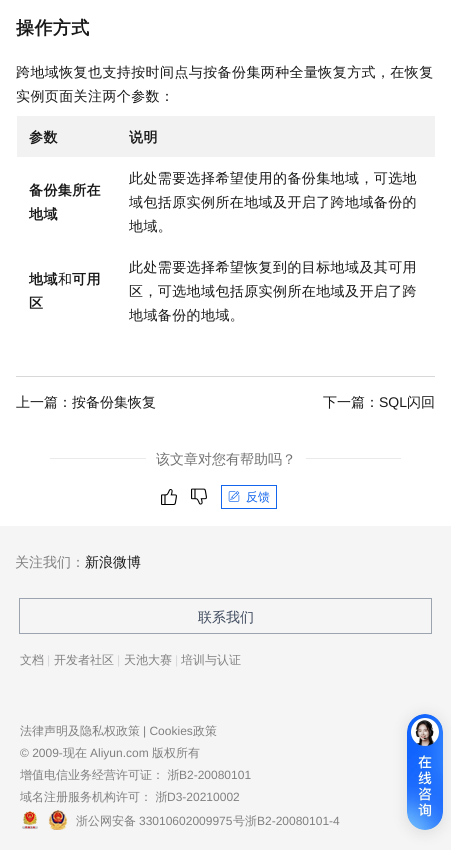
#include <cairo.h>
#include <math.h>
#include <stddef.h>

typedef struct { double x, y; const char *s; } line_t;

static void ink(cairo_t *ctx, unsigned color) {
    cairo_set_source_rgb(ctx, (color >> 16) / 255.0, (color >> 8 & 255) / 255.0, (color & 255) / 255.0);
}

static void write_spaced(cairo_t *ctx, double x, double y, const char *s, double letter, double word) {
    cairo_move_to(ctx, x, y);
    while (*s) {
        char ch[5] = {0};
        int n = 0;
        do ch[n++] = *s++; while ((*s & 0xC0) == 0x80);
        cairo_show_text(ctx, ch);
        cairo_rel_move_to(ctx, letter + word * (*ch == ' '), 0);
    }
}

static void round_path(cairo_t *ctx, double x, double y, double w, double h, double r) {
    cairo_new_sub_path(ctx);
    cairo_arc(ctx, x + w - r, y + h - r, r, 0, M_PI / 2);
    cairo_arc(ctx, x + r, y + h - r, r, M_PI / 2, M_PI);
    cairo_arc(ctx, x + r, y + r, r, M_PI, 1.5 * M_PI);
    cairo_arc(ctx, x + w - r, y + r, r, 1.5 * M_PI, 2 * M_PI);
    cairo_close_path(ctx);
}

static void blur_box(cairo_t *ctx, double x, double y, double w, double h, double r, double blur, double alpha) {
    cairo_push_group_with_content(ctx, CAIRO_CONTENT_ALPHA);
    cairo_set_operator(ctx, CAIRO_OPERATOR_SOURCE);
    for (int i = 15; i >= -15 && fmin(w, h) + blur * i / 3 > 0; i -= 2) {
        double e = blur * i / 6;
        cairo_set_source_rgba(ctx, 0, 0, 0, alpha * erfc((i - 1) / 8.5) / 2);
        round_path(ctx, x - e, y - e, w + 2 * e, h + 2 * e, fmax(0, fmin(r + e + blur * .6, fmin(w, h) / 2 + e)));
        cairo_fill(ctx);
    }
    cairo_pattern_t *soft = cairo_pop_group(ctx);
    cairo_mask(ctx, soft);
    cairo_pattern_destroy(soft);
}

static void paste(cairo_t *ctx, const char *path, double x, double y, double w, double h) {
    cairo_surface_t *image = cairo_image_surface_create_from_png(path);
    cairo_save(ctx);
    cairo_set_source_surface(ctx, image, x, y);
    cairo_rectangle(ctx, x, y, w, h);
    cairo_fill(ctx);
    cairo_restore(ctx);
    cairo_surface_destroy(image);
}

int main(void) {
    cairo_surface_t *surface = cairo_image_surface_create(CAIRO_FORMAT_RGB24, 451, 850);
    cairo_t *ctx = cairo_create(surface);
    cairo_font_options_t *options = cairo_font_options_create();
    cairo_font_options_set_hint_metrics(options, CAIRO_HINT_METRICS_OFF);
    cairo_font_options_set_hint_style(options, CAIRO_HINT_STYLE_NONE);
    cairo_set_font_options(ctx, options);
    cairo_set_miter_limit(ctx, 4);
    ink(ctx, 0xFFFFFF);
    cairo_paint(ctx);
    cairo_select_font_face(ctx, "WenQuanYi Zen Hei", CAIRO_FONT_SLANT_NORMAL, CAIRO_FONT_WEIGHT_BOLD);
    cairo_set_font_size(ctx, 18);
    ink(ctx, 0x181818);
    write_spaced(ctx, 16, 34, "操作方式", 0.4, 0);
    cairo_select_font_face(ctx, "WenQuanYi Zen Hei Medium", CAIRO_FONT_SLANT_NORMAL, CAIRO_FONT_WEIGHT_NORMAL);
    cairo_set_font_size(ctx, 14);
    write_spaced(ctx, 16, 77, "跨地域恢复也支持按时间点与按备份集两种全量恢复方式，在恢复", 0.4, 0);
    write_spaced(ctx, 16, 101, "实例页面关注两个参数：", 0.4, 0);
    ink(ctx, 0xF2F2F2);
    cairo_rectangle(ctx, 17, 116, 418, 41);
    cairo_fill(ctx);
    cairo_select_font_face(ctx, "WenQuanYi Zen Hei", CAIRO_FONT_SLANT_NORMAL, CAIRO_FONT_WEIGHT_BOLD);
    ink(ctx, 0x181818);
    {
        static const line_t items[] = {
            {29, 142, "参数"},
            {129, 142, "说明"},
            {29, 195, "备份集所在"},
            {29, 219, "地域"},
        };
        for (size_t i = 0; i < sizeof items / sizeof *items; i++) {
            write_spaced(ctx, items[i].x, items[i].y, items[i].s, 0.4, 0);
        }
    }
    cairo_select_font_face(ctx, "WenQuanYi Zen Hei Medium", CAIRO_FONT_SLANT_NORMAL, CAIRO_FONT_WEIGHT_NORMAL);
    {
        static const line_t items[] = {
            {129, 183, "此处需要选择希望使用的备份集地域，可选地"},
            {129, 207, "域包括原实例所在地域及开启了跨地域备份的"},
            {129, 231, "地域。"},
        };
        for (size_t i = 0; i < sizeof items / sizeof *items; i++) {
            write_spaced(ctx, items[i].x, items[i].y, items[i].s, 0.4, 0);
        }
    }
    cairo_select_font_face(ctx, "WenQuanYi Zen Hei", CAIRO_FONT_SLANT_NORMAL, CAIRO_FONT_WEIGHT_BOLD);
    write_spaced(ctx, 29, 284, "地域", 0.4, 0);
    cairo_select_font_face(ctx, "WenQuanYi Zen Hei Medium", CAIRO_FONT_SLANT_NORMAL, CAIRO_FONT_WEIGHT_NORMAL);
    write_spaced(ctx, 58, 284, "和", 0.4, 0);
    cairo_select_font_face(ctx, "WenQuanYi Zen Hei", CAIRO_FONT_SLANT_NORMAL, CAIRO_FONT_WEIGHT_BOLD);
    write_spaced(ctx, 72, 284, "可用", 0.4, 0);
    write_spaced(ctx, 29, 308, "区", 0.4, 0);
    cairo_select_font_face(ctx, "WenQuanYi Zen Hei Medium", CAIRO_FONT_SLANT_NORMAL, CAIRO_FONT_WEIGHT_NORMAL);
    {
        static const line_t items[] = {
            {129, 272, "此处需要选择希望恢复到的目标地域及其可用"},
            {129, 296, "区，可选地域包括原实例所在地域及开启了跨"},
            {129, 320, "地域备份的地域。"},
        };
        for (size_t i = 0; i < sizeof items / sizeof *items; i++) {
            write_spaced(ctx, items[i].x, items[i].y, items[i].s, 0.4, 0);
        }
    }
    ink(ctx, 0xD7D8D9);
    cairo_rectangle(ctx, 16, 376, 419, 1);
    cairo_fill(ctx);
    ink(ctx, 0x181818);
    cairo_move_to(ctx, 16, 407);
    cairo_show_text(ctx, "上一篇：按备份集恢复");
    cairo_move_to(ctx, 323, 407);
    cairo_show_text(ctx, "下一篇：");
    cairo_select_font_face(ctx, "Liberation Sans", CAIRO_FONT_SLANT_NORMAL, CAIRO_FONT_WEIGHT_NORMAL);
    cairo_move_to(ctx, 379, 407);
    cairo_show_text(ctx, "SQL");
    cairo_select_font_face(ctx, "WenQuanYi Zen Hei Medium", CAIRO_FONT_SLANT_NORMAL, CAIRO_FONT_WEIGHT_NORMAL);
    cairo_move_to(ctx, 407, 407);
    cairo_show_text(ctx, "闪回");
    ink(ctx, 0xEAEAEA);
    cairo_rectangle(ctx, 50, 458, 96, 1);
    cairo_fill(ctx);
    ink(ctx, 0x717171);
    cairo_move_to(ctx, 156, 464);
    cairo_show_text(ctx, "该文章对您有帮助吗？");
    ink(ctx, 0xEAEAEA);
    cairo_rectangle(ctx, 306, 458, 95, 1);
    cairo_fill(ctx);
    paste(ctx, "media/1.png", 161, 489, 16, 16);
    paste(ctx, "media/2.png", 191, 488, 16, 17);
    cairo_rectangle(ctx, 221.5, 485.5, 55, 23);
    ink(ctx, 0x1366EC);
    cairo_set_line_width(ctx, 1);
    cairo_stroke(ctx);
    paste(ctx, "media/3.png", 228, 491, 12, 11);
    cairo_set_font_size(ctx, 12);
    cairo_move_to(ctx, 246, 501);
    cairo_show_text(ctx, "反馈");
    ink(ctx, 0xF5F5F6);
    cairo_rectangle(ctx, 0, 526, 451, 324);
    cairo_fill(ctx);
    cairo_set_font_size(ctx, 14);
    ink(ctx, 0x808080);
    cairo_move_to(ctx, 15, 567);
    cairo_show_text(ctx, "关注我们：");
    ink(ctx, 0x181818);
    cairo_move_to(ctx, 85, 567);
    cairo_show_text(ctx, "新浪微博");
    cairo_rectangle(ctx, 19.5, 598.5, 412, 35);
    ink(ctx, 0x9CA4AF);
    cairo_stroke(ctx);
    ink(ctx, 0x3D495C);
    cairo_move_to(ctx, 198, 622);
    cairo_show_text(ctx, "联系我们");
    cairo_set_font_size(ctx, 12);
    ink(ctx, 0x808080);
    cairo_move_to(ctx, 20, 664);
    cairo_show_text(ctx, "文档");
    cairo_select_font_face(ctx, "Liberation Sans", CAIRO_FONT_SLANT_NORMAL, CAIRO_FONT_WEIGHT_NORMAL);
    ink(ctx, 0xD7D8D9);
    cairo_move_to(ctx, 47, 664);
    cairo_show_text(ctx, "|");
    cairo_select_font_face(ctx, "WenQuanYi Zen Hei Medium", CAIRO_FONT_SLANT_NORMAL, CAIRO_FONT_WEIGHT_NORMAL);
    ink(ctx, 0x808080);
    cairo_move_to(ctx, 54, 664);
    cairo_show_text(ctx, "开发者社区");
    cairo_select_font_face(ctx, "Liberation Sans", CAIRO_FONT_SLANT_NORMAL, CAIRO_FONT_WEIGHT_NORMAL);
    ink(ctx, 0xD7D8D9);
    cairo_move_to(ctx, 117, 664);
    cairo_show_text(ctx, "|");
    cairo_select_font_face(ctx, "WenQuanYi Zen Hei Medium", CAIRO_FONT_SLANT_NORMAL, CAIRO_FONT_WEIGHT_NORMAL);
    ink(ctx, 0x808080);
    cairo_move_to(ctx, 124, 664);
    cairo_show_text(ctx, "天池大赛");
    cairo_select_font_face(ctx, "Liberation Sans", CAIRO_FONT_SLANT_NORMAL, CAIRO_FONT_WEIGHT_NORMAL);
    ink(ctx, 0xD7D8D9);
    cairo_move_to(ctx, 175, 664);
    cairo_show_text(ctx, "|");
    cairo_select_font_face(ctx, "WenQuanYi Zen Hei Medium", CAIRO_FONT_SLANT_NORMAL, CAIRO_FONT_WEIGHT_NORMAL);
    ink(ctx, 0x808080);
    cairo_move_to(ctx, 181, 664);
    cairo_show_text(ctx, "培训与认证");
    cairo_move_to(ctx, 20, 735);
    cairo_show_text(ctx, "法律声明及隐私权政策");
    cairo_select_font_face(ctx, "Liberation Sans", CAIRO_FONT_SLANT_NORMAL, CAIRO_FONT_WEIGHT_NORMAL);
    cairo_move_to(ctx, 143, 735);
    cairo_show_text(ctx, "| Cookies");
    cairo_select_font_face(ctx, "WenQuanYi Zen Hei Medium", CAIRO_FONT_SLANT_NORMAL, CAIRO_FONT_WEIGHT_NORMAL);
    cairo_move_to(ctx, 193, 735);
    cairo_show_text(ctx, "政策");
    cairo_select_font_face(ctx, "Liberation Sans", CAIRO_FONT_SLANT_NORMAL, CAIRO_FONT_WEIGHT_NORMAL);
    cairo_move_to(ctx, 20, 757);
    cairo_show_text(ctx, "© 2009-");
    cairo_select_font_face(ctx, "WenQuanYi Zen Hei Medium", CAIRO_FONT_SLANT_NORMAL, CAIRO_FONT_WEIGHT_NORMAL);
    cairo_move_to(ctx, 63, 757);
    cairo_show_text(ctx, "现在");
    cairo_select_font_face(ctx, "Liberation Sans", CAIRO_FONT_SLANT_NORMAL, CAIRO_FONT_WEIGHT_NORMAL);
    cairo_move_to(ctx, 90, 757);
    cairo_show_text(ctx, "Aliyun.com");
    cairo_select_font_face(ctx, "WenQuanYi Zen Hei Medium", CAIRO_FONT_SLANT_NORMAL, CAIRO_FONT_WEIGHT_NORMAL);
    cairo_move_to(ctx, 152, 757);
    cairo_show_text(ctx, "版权所有");
    cairo_move_to(ctx, 20, 779);
    cairo_show_text(ctx, "增值电信业务经营许可证： 浙");
    cairo_select_font_face(ctx, "Liberation Sans", CAIRO_FONT_SLANT_NORMAL, CAIRO_FONT_WEIGHT_NORMAL);
    cairo_move_to(ctx, 179, 779);
    cairo_show_text(ctx, "B2-20080101");
    cairo_select_font_face(ctx, "WenQuanYi Zen Hei Medium", CAIRO_FONT_SLANT_NORMAL, CAIRO_FONT_WEIGHT_NORMAL);
    cairo_move_to(ctx, 20, 801);
    cairo_show_text(ctx, "域名注册服务机构许可： 浙");
    cairo_select_font_face(ctx, "Liberation Sans", CAIRO_FONT_SLANT_NORMAL, CAIRO_FONT_WEIGHT_NORMAL);
    cairo_move_to(ctx, 167, 801);
    cairo_show_text(ctx, "D3-20210002");
    paste(ctx, "media/4.png", 22, 811, 16, 18);
    paste(ctx, "media/5.png", 48, 810, 20, 20);
    cairo_select_font_face(ctx, "WenQuanYi Zen Hei Medium", CAIRO_FONT_SLANT_NORMAL, CAIRO_FONT_WEIGHT_NORMAL);
    cairo_move_to(ctx, 76, 825);
    cairo_show_text(ctx, "浙公网安备");
    cairo_select_font_face(ctx, "Liberation Sans", CAIRO_FONT_SLANT_NORMAL, CAIRO_FONT_WEIGHT_NORMAL);
    cairo_move_to(ctx, 139, 825);
    cairo_show_text(ctx, "33010602009975");
    cairo_select_font_face(ctx, "WenQuanYi Zen Hei Medium", CAIRO_FONT_SLANT_NORMAL, CAIRO_FONT_WEIGHT_NORMAL);
    cairo_move_to(ctx, 233, 825);
    cairo_show_text(ctx, "号浙");
    cairo_select_font_face(ctx, "Liberation Sans", CAIRO_FONT_SLANT_NORMAL, CAIRO_FONT_WEIGHT_NORMAL);
    cairo_move_to(ctx, 257, 825);
    cairo_show_text(ctx, "B2-20080101-4");
    ink(ctx, 0x000000);
    blur_box(ctx, 407, 716, 36, 116, 18, 7.5, 0.1);
    paste(ctx, "media/6.png", 407, 714, 36, 116);
    cairo_surface_write_to_png(surface, "image.png");
    cairo_font_options_destroy(options);
    cairo_destroy(ctx);
    cairo_surface_destroy(surface);
    return 0;
}
